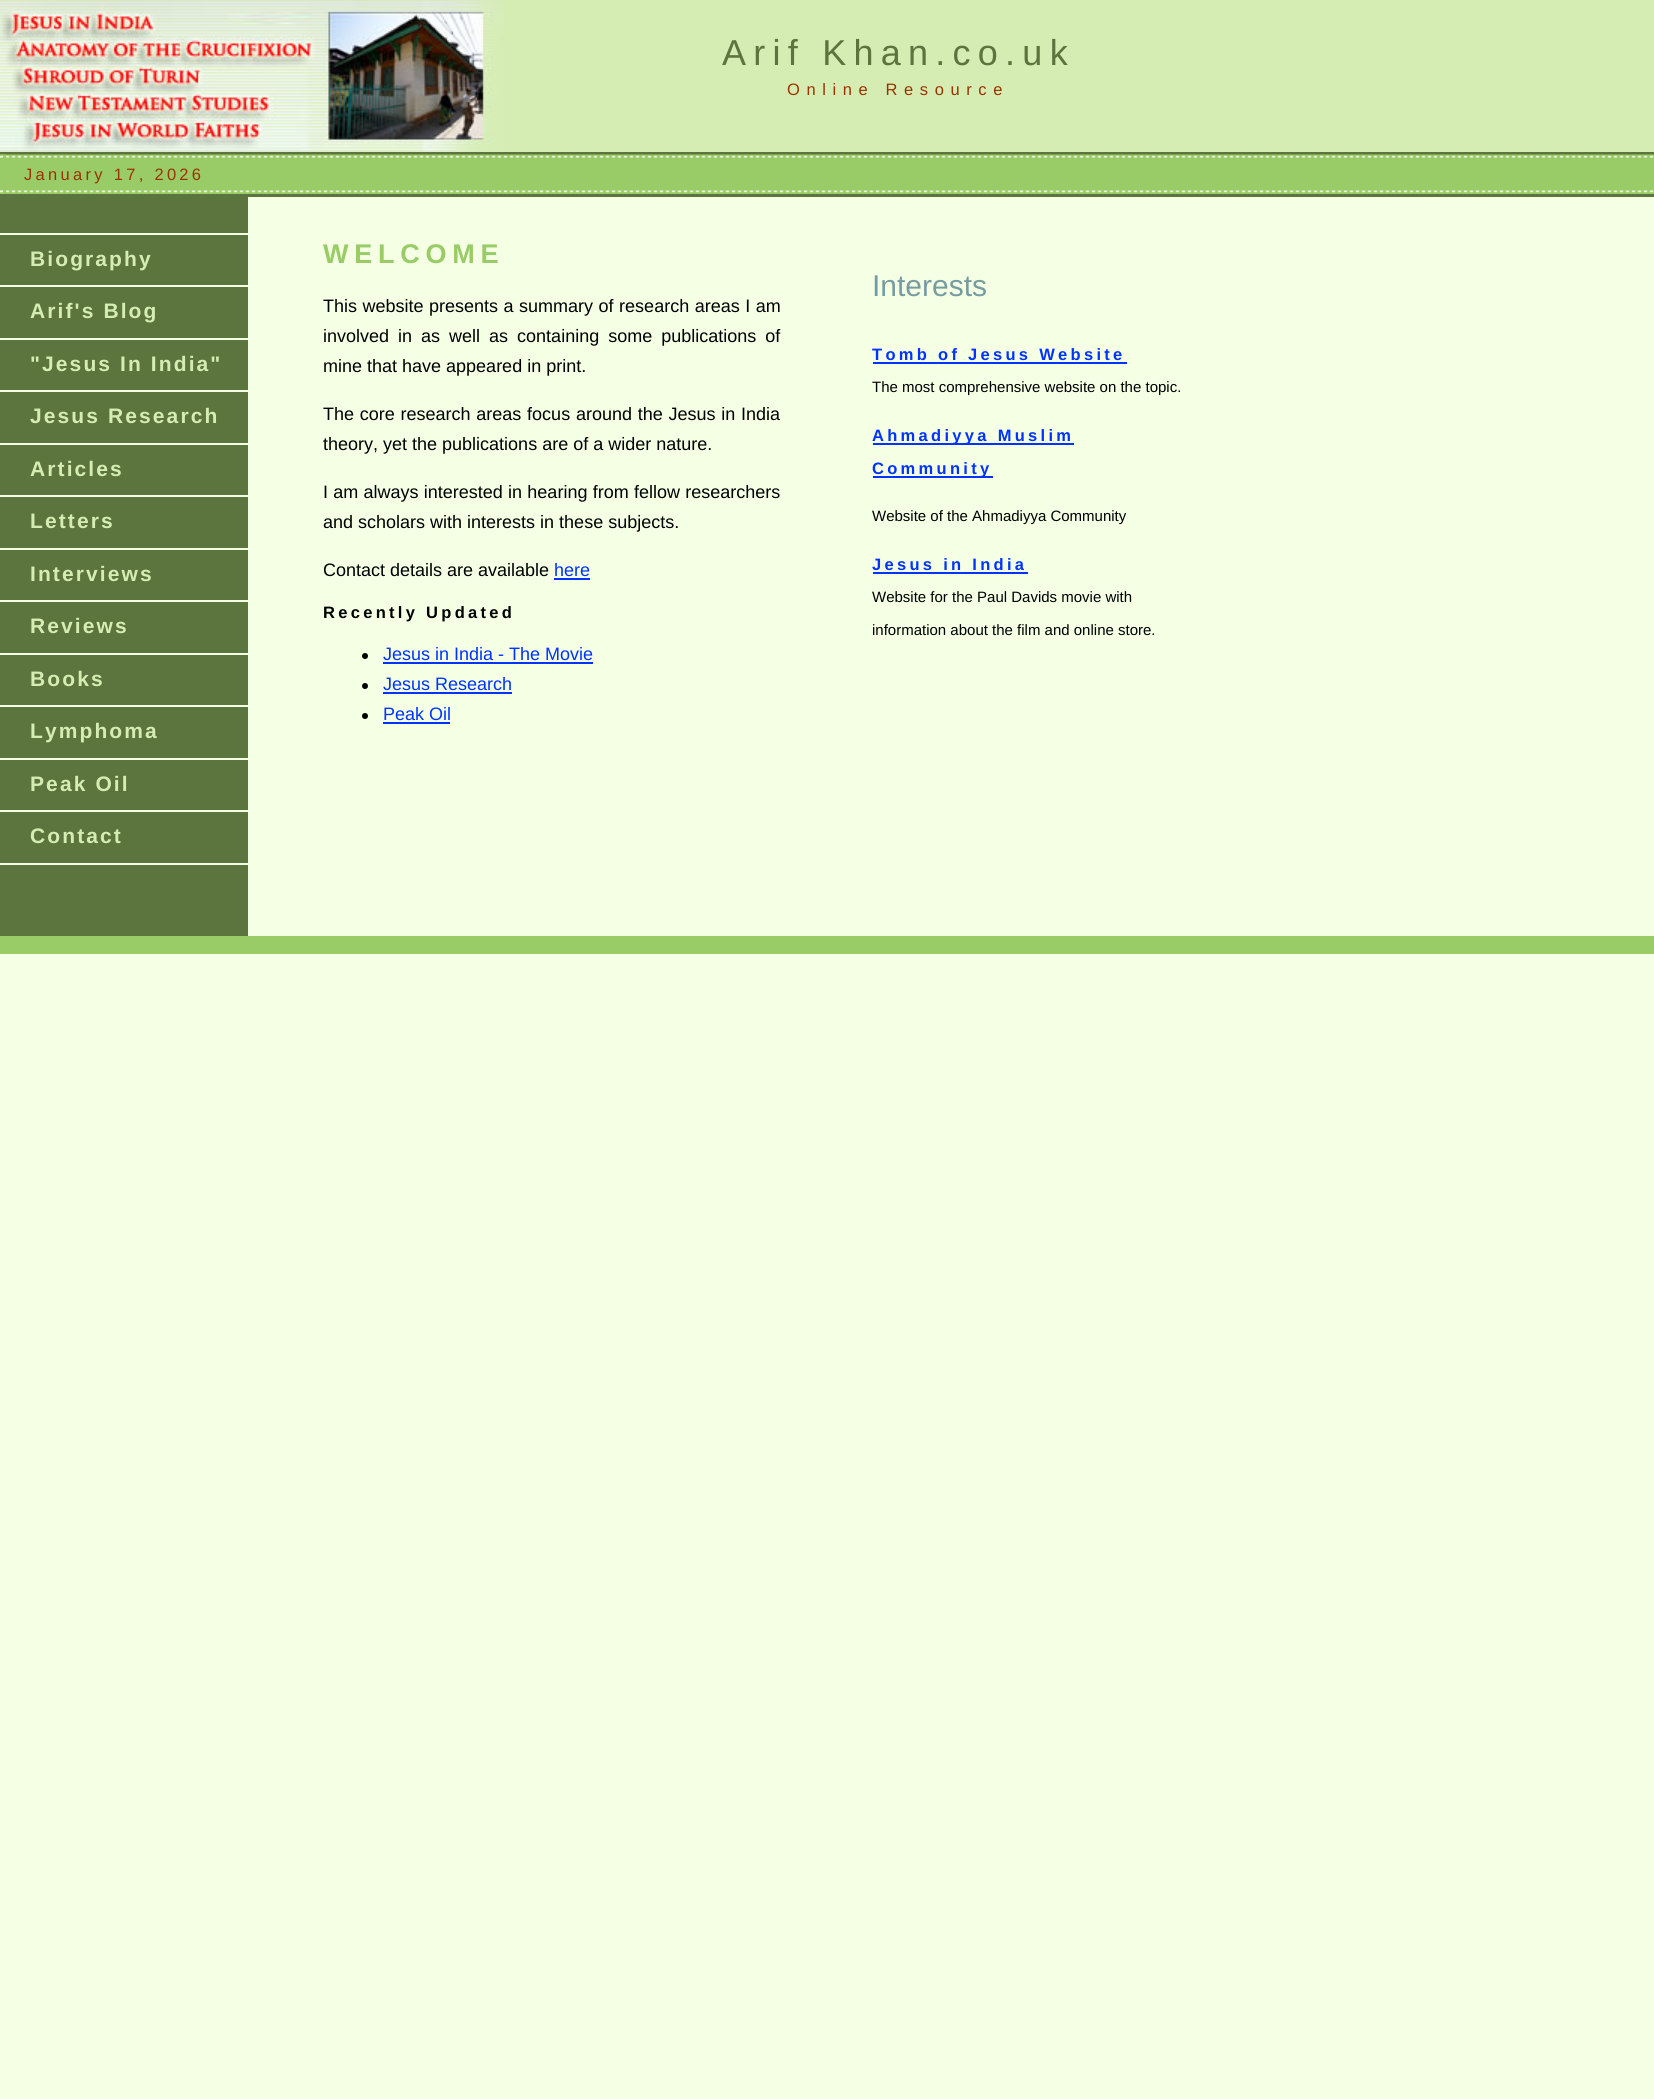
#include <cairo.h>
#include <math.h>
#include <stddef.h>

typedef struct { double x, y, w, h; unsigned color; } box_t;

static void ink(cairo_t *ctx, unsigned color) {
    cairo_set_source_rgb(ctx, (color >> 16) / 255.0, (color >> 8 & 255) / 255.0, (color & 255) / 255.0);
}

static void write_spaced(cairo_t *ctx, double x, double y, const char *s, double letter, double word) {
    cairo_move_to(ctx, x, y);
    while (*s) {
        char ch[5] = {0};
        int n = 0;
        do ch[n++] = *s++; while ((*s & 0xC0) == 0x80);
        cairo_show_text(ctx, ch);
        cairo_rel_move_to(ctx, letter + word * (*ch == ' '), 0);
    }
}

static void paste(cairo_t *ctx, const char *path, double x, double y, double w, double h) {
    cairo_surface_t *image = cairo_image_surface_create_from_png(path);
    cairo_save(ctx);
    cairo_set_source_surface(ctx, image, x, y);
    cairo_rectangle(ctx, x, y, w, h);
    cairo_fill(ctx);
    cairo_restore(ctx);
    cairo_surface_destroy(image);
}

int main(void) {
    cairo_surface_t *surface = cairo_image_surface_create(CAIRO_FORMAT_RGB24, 1654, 2099);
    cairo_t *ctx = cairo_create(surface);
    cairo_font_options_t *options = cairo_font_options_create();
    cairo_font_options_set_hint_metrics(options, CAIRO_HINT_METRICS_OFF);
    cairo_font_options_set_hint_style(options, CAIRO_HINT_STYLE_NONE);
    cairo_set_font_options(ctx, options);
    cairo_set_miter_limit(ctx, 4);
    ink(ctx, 0xF4FFE4);
    cairo_paint(ctx);
    ink(ctx, 0xD5EDB3);
    cairo_rectangle(ctx, 504, 0, 1150, 75);
    cairo_fill(ctx);
    cairo_rectangle(ctx, 0, 75, 1654, 77);
    cairo_fill(ctx);
    paste(ctx, "media/1.png", 0, 0, 504, 152);
    cairo_select_font_face(ctx, "Liberation Sans", CAIRO_FONT_SLANT_NORMAL, CAIRO_FONT_WEIGHT_NORMAL);
    cairo_set_font_size(ctx, 36);
    ink(ctx, 0x5C743D);
    write_spaced(ctx, 722, 65, "Arif Khan.co.uk", 7.25, 0);
    cairo_set_font_size(ctx, 16.5);
    ink(ctx, 0x993300);
    write_spaced(ctx, 787, 95, "Online Resource", 6.6, 0);
    ink(ctx, 0x5C743D);
    cairo_rectangle(ctx, 0, 152, 1654, 3);
    cairo_fill(ctx);
    ink(ctx, 0x99CC66);
    cairo_rectangle(ctx, 0, 158, 1654, 36);
    cairo_fill(ctx);
    paste(ctx, "media/2.png", 0, 154, 1654, 4);
    paste(ctx, "media/3.png", 0, 154, 6, 4);
    ink(ctx, 0x993300);
    write_spaced(ctx, 24, 180, "January 17, 2026", 3.3, 0);
    paste(ctx, "media/4.png", 6, 190, 1648, 3);
    paste(ctx, "media/5.png", 0, 190, 6, 3);
    {
        static const box_t items[] = {
            {0, 194, 1654, 3, 0x5C743D},
            {0, 197, 248, 739, 0x5C743D},
            {0, 233, 248, 2, 0xF4FFE4},
            {0, 285, 248, 2, 0xF4FFE4},
        };
        for (size_t i = 0; i < sizeof items / sizeof *items; i++) {
            ink(ctx, items[i].color);
            cairo_rectangle(ctx, items[i].x, items[i].y, items[i].w, items[i].h);
            cairo_fill(ctx);
        }
    }
    cairo_select_font_face(ctx, "Liberation Sans", CAIRO_FONT_SLANT_NORMAL, CAIRO_FONT_WEIGHT_BOLD);
    cairo_set_font_size(ctx, 21);
    ink(ctx, 0xD5EDB3);
    write_spaced(ctx, 30, 266, "Biography", 2.1, 0);
    ink(ctx, 0xF4FFE4);
    cairo_rectangle(ctx, 0, 338, 248, 2);
    cairo_fill(ctx);
    ink(ctx, 0xD5EDB3);
    write_spaced(ctx, 30, 318, "Arif's Blog", 2.1, 0);
    ink(ctx, 0xF4FFE4);
    cairo_rectangle(ctx, 0, 390, 248, 2);
    cairo_fill(ctx);
    ink(ctx, 0xD5EDB3);
    write_spaced(ctx, 30, 371, "\"Jesus In India\"", 2.1, 0);
    ink(ctx, 0xF4FFE4);
    cairo_rectangle(ctx, 0, 443, 248, 2);
    cairo_fill(ctx);
    ink(ctx, 0xD5EDB3);
    write_spaced(ctx, 30, 423, "Jesus Research", 2.1, 0);
    ink(ctx, 0xF4FFE4);
    cairo_rectangle(ctx, 0, 495, 248, 2);
    cairo_fill(ctx);
    ink(ctx, 0xD5EDB3);
    write_spaced(ctx, 30, 476, "Articles", 2.1, 0);
    ink(ctx, 0xF4FFE4);
    cairo_rectangle(ctx, 0, 548, 248, 2);
    cairo_fill(ctx);
    ink(ctx, 0xD5EDB3);
    write_spaced(ctx, 30, 528, "Letters", 2.1, 0);
    ink(ctx, 0xF4FFE4);
    cairo_rectangle(ctx, 0, 600, 248, 2);
    cairo_fill(ctx);
    ink(ctx, 0xD5EDB3);
    write_spaced(ctx, 30, 581, "Interviews", 2.1, 0);
    ink(ctx, 0xF4FFE4);
    cairo_rectangle(ctx, 0, 653, 248, 2);
    cairo_fill(ctx);
    ink(ctx, 0xD5EDB3);
    write_spaced(ctx, 30, 633, "Reviews", 2.1, 0);
    ink(ctx, 0xF4FFE4);
    cairo_rectangle(ctx, 0, 705, 248, 2);
    cairo_fill(ctx);
    ink(ctx, 0xD5EDB3);
    write_spaced(ctx, 30, 686, "Books", 2.1, 0);
    ink(ctx, 0xF4FFE4);
    cairo_rectangle(ctx, 0, 758, 248, 2);
    cairo_fill(ctx);
    ink(ctx, 0xD5EDB3);
    write_spaced(ctx, 30, 738, "Lymphoma", 2.1, 0);
    ink(ctx, 0xF4FFE4);
    cairo_rectangle(ctx, 0, 810, 248, 2);
    cairo_fill(ctx);
    ink(ctx, 0xD5EDB3);
    write_spaced(ctx, 30, 791, "Peak Oil", 2.1, 0);
    ink(ctx, 0xF4FFE4);
    cairo_rectangle(ctx, 0, 863, 248, 2);
    cairo_fill(ctx);
    ink(ctx, 0xD5EDB3);
    write_spaced(ctx, 30, 843, "Contact", 2.1, 0);
    cairo_set_font_size(ctx, 27);
    ink(ctx, 0x99CC66);
    write_spaced(ctx, 323, 263, "WELCOME", 5.75, 0);
    cairo_select_font_face(ctx, "Liberation Sans", CAIRO_FONT_SLANT_NORMAL, CAIRO_FONT_WEIGHT_NORMAL);
    cairo_set_font_size(ctx, 18);
    ink(ctx, 0x000000);
    write_spaced(ctx, 323, 312, "This website presents a summary of research areas I am", 0, 0.5);
    write_spaced(ctx, 323, 342, "involved in as well as containing some publications of", 0, 4);
    cairo_move_to(ctx, 323, 372);
    cairo_show_text(ctx, "mine that have appeared in print.");
    write_spaced(ctx, 323, 420, "The core research areas focus around the Jesus in India", 0, 0.75);
    cairo_move_to(ctx, 323, 450);
    cairo_show_text(ctx, "theory, yet the publications are of a wider nature.");
    write_spaced(ctx, 323, 498, "I am always interested in hearing from fellow researchers", 0, 0.25);
    cairo_move_to(ctx, 323, 528);
    cairo_show_text(ctx, "and scholars with interests in these subjects.");
    cairo_move_to(ctx, 323, 576);
    cairo_show_text(ctx, "Contact details are available");
    ink(ctx, 0x0033FF);
    cairo_move_to(ctx, 554, 576);
    cairo_show_text(ctx, "here");
    cairo_rectangle(ctx, 554, 578, 36, 2);
    cairo_fill(ctx);
    cairo_select_font_face(ctx, "Liberation Sans", CAIRO_FONT_SLANT_NORMAL, CAIRO_FONT_WEIGHT_BOLD);
    cairo_set_font_size(ctx, 16.5);
    ink(ctx, 0x000000);
    write_spaced(ctx, 323, 618, "Recently Updated", 3.3, 0);
    cairo_new_path(ctx);
    cairo_arc(ctx, 365, 656, 3, 0, 2 * M_PI);
    cairo_fill(ctx);
    cairo_select_font_face(ctx, "Liberation Sans", CAIRO_FONT_SLANT_NORMAL, CAIRO_FONT_WEIGHT_NORMAL);
    cairo_set_font_size(ctx, 18);
    ink(ctx, 0x0033FF);
    cairo_move_to(ctx, 383, 660);
    cairo_show_text(ctx, "Jesus in India - The Movie");
    cairo_rectangle(ctx, 383, 662, 210, 2);
    cairo_fill(ctx);
    ink(ctx, 0x000000);
    cairo_arc(ctx, 365, 686, 3, 0, 2 * M_PI);
    cairo_fill(ctx);
    ink(ctx, 0x0033FF);
    cairo_move_to(ctx, 383, 690);
    cairo_show_text(ctx, "Jesus Research");
    cairo_rectangle(ctx, 383, 692, 129, 2);
    cairo_fill(ctx);
    ink(ctx, 0x000000);
    cairo_arc(ctx, 365, 716, 3, 0, 2 * M_PI);
    cairo_fill(ctx);
    ink(ctx, 0x0033FF);
    cairo_move_to(ctx, 383, 720);
    cairo_show_text(ctx, "Peak Oil");
    cairo_rectangle(ctx, 383, 722, 67, 2);
    cairo_fill(ctx);
    cairo_set_font_size(ctx, 30);
    ink(ctx, 0x759DA1);
    cairo_move_to(ctx, 872, 296);
    cairo_show_text(ctx, "Interests");
    cairo_select_font_face(ctx, "Liberation Sans", CAIRO_FONT_SLANT_NORMAL, CAIRO_FONT_WEIGHT_BOLD);
    cairo_set_font_size(ctx, 16.5);
    ink(ctx, 0x0033FF);
    write_spaced(ctx, 872, 360, "Tomb of Jesus Website", 3.3, 0);
    cairo_rectangle(ctx, 873, 362, 254, 2);
    cairo_fill(ctx);
    cairo_select_font_face(ctx, "Liberation Sans", CAIRO_FONT_SLANT_NORMAL, CAIRO_FONT_WEIGHT_NORMAL);
    cairo_set_font_size(ctx, 15);
    ink(ctx, 0x000000);
    cairo_move_to(ctx, 872, 392);
    cairo_show_text(ctx, "The most comprehensive website on the topic.");
    ink(ctx, 0x0033FF);
    cairo_rectangle(ctx, 873, 443, 201, 2);
    cairo_fill(ctx);
    cairo_select_font_face(ctx, "Liberation Sans", CAIRO_FONT_SLANT_NORMAL, CAIRO_FONT_WEIGHT_BOLD);
    cairo_set_font_size(ctx, 16.5);
    write_spaced(ctx, 872, 441, "Ahmadiyya Muslim", 3.3, 0);
    cairo_rectangle(ctx, 873, 476, 120, 2);
    cairo_fill(ctx);
    write_spaced(ctx, 872, 474, "Community", 3.3, 0);
    cairo_select_font_face(ctx, "Liberation Sans", CAIRO_FONT_SLANT_NORMAL, CAIRO_FONT_WEIGHT_NORMAL);
    cairo_set_font_size(ctx, 15);
    ink(ctx, 0x000000);
    cairo_move_to(ctx, 872, 521);
    cairo_show_text(ctx, "Website of the Ahmadiyya Community");
    cairo_select_font_face(ctx, "Liberation Sans", CAIRO_FONT_SLANT_NORMAL, CAIRO_FONT_WEIGHT_BOLD);
    cairo_set_font_size(ctx, 16.5);
    ink(ctx, 0x0033FF);
    write_spaced(ctx, 872, 570, "Jesus in India", 3.3, 0);
    cairo_rectangle(ctx, 873, 572, 155, 2);
    cairo_fill(ctx);
    cairo_select_font_face(ctx, "Liberation Sans", CAIRO_FONT_SLANT_NORMAL, CAIRO_FONT_WEIGHT_NORMAL);
    cairo_set_font_size(ctx, 15);
    ink(ctx, 0x000000);
    cairo_move_to(ctx, 872, 602);
    cairo_show_text(ctx, "Website for the Paul Davids movie with");
    cairo_move_to(ctx, 872, 635);
    cairo_show_text(ctx, "information about the film and online store.");
    ink(ctx, 0x99CC66);
    cairo_rectangle(ctx, 0, 936, 1654, 18);
    cairo_fill(ctx);
    cairo_surface_write_to_png(surface, "image.png");
    cairo_font_options_destroy(options);
    cairo_destroy(ctx);
    cairo_surface_destroy(surface);
    return 0;
}
